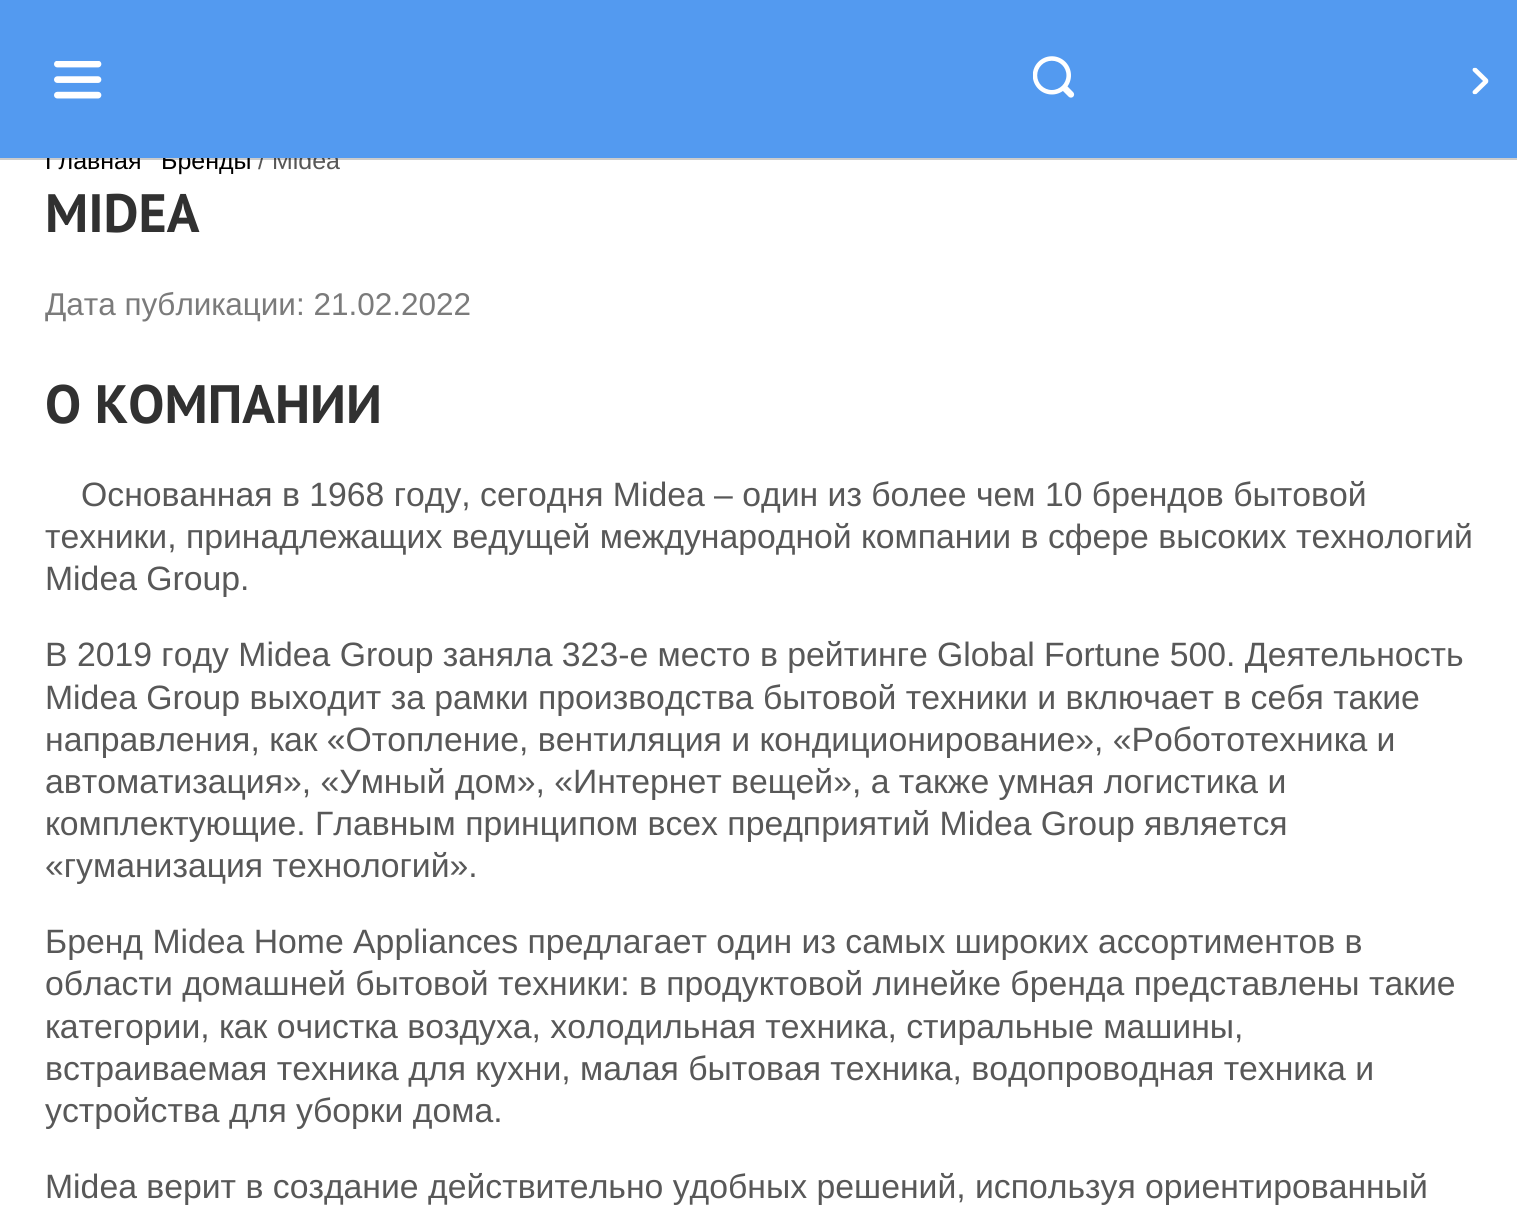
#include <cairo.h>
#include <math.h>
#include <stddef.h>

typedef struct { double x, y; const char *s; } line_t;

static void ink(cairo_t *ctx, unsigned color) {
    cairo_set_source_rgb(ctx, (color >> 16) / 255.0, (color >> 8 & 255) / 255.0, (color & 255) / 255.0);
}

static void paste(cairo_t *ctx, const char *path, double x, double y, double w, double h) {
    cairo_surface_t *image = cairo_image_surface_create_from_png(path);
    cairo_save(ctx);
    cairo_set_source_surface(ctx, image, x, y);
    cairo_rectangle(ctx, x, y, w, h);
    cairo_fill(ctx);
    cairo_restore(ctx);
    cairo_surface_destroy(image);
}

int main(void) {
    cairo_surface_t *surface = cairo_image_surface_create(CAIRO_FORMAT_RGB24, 1517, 1209);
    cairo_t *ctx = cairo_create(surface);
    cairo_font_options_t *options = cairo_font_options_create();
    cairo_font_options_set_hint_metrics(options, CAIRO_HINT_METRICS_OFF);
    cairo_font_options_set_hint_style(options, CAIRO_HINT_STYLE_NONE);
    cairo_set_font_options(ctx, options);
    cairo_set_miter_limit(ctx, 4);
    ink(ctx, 0xFFFFFF);
    cairo_paint(ctx);
    cairo_select_font_face(ctx, "Liberation Sans", CAIRO_FONT_SLANT_NORMAL, CAIRO_FONT_WEIGHT_NORMAL);
    cairo_set_font_size(ctx, 25);
    ink(ctx, 0x000000);
    cairo_move_to(ctx, 45, 169);
    cairo_show_text(ctx, "Главная");
    cairo_move_to(ctx, 161, 169);
    cairo_show_text(ctx, "Бренды");
    ink(ctx, 0x585858);
    cairo_move_to(ctx, 258, 169);
    cairo_show_text(ctx, "/ Midea");
    cairo_set_source_rgba(ctx, 0, 0, 0, 0.2);
    cairo_new_path(ctx);
    cairo_move_to(ctx, 0, 158);
    cairo_line_to(ctx, 0, 160);
    cairo_line_to(ctx, 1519, 160);
    cairo_line_to(ctx, 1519, 2);
    cairo_line_to(ctx, 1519, 158);
    cairo_close_path(ctx);
    cairo_fill(ctx);
    ink(ctx, 0x539AF0);
    cairo_rectangle(ctx, 0, 0, 1517, 158);
    cairo_fill(ctx);
    paste(ctx, "media/1.png", 54, 61, 48, 38);
    paste(ctx, "media/2.png", 1033, 56, 42, 42);
    paste(ctx, "media/3.png", 1472, 67, 17, 28);
    cairo_select_font_face(ctx, "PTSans", CAIRO_FONT_SLANT_NORMAL, CAIRO_FONT_WEIGHT_BOLD);
    cairo_set_font_size(ctx, 54);
    ink(ctx, 0x313131);
    cairo_move_to(ctx, 45, 232);
    cairo_show_text(ctx, "MIDEA");
    cairo_select_font_face(ctx, "Liberation Sans", CAIRO_FONT_SLANT_NORMAL, CAIRO_FONT_WEIGHT_NORMAL);
    cairo_set_font_size(ctx, 31.5);
    ink(ctx, 0x7B7B7B);
    cairo_move_to(ctx, 45, 315);
    cairo_show_text(ctx, "Дата публикации: 21.02.2022");
    cairo_select_font_face(ctx, "PTSans", CAIRO_FONT_SLANT_NORMAL, CAIRO_FONT_WEIGHT_BOLD);
    cairo_set_font_size(ctx, 54);
    ink(ctx, 0x313131);
    cairo_move_to(ctx, 45, 423);
    cairo_show_text(ctx, "О КОМПАНИИ");
    cairo_select_font_face(ctx, "Liberation Sans", CAIRO_FONT_SLANT_NORMAL, CAIRO_FONT_WEIGHT_NORMAL);
    cairo_set_font_size(ctx, 33.75);
    ink(ctx, 0x585858);
    {
        static const line_t items[] = {
            {81, 506, "Основанная в 1968 году, сегодня Midea – один из более чем 10 брендов бытовой"},
            {45, 548, "техники, принадлежащих ведущей международной компании в сфере высоких технологий"},
            {45, 590, "Midea Group."},
            {45, 666, "В 2019 году Midea Group заняла 323-е место в рейтинге Global Fortune 500. Деятельность"},
            {45, 709, "Midea Group выходит за рамки производства бытовой техники и включает в себя такие"},
            {45, 751, "направления, как «Отопление, вентиляция и кондиционирование», «Робототехника и"},
            {45, 793, "автоматизация», «Умный дом», «Интернет вещей», а также умная логистика и"},
            {45, 835, "комплектующие. Главным принципом всех предприятий Midea Group является"},
            {45, 877, "«гуманизация технологий»."},
            {45, 953, "Бренд Midea Home Appliances предлагает один из самых широких ассортиментов в"},
            {45, 995, "области домашней бытовой техники: в продуктовой линейке бренда представлены такие"},
            {45, 1038, "категории, как очистка воздуха, холодильная техника, стиральные машины,"},
            {45, 1080, "встраиваемая техника для кухни, малая бытовая техника, водопроводная техника и"},
            {45, 1122, "устройства для уборки дома."},
            {45, 1198, "Midea верит в создание действительно удобных решений, используя ориентированный"},
        };
        for (size_t i = 0; i < sizeof items / sizeof *items; i++) {
            cairo_move_to(ctx, items[i].x, items[i].y);
            cairo_show_text(ctx, items[i].s);
        }
    }
    cairo_surface_write_to_png(surface, "image.png");
    cairo_font_options_destroy(options);
    cairo_destroy(ctx);
    cairo_surface_destroy(surface);
    return 0;
}
